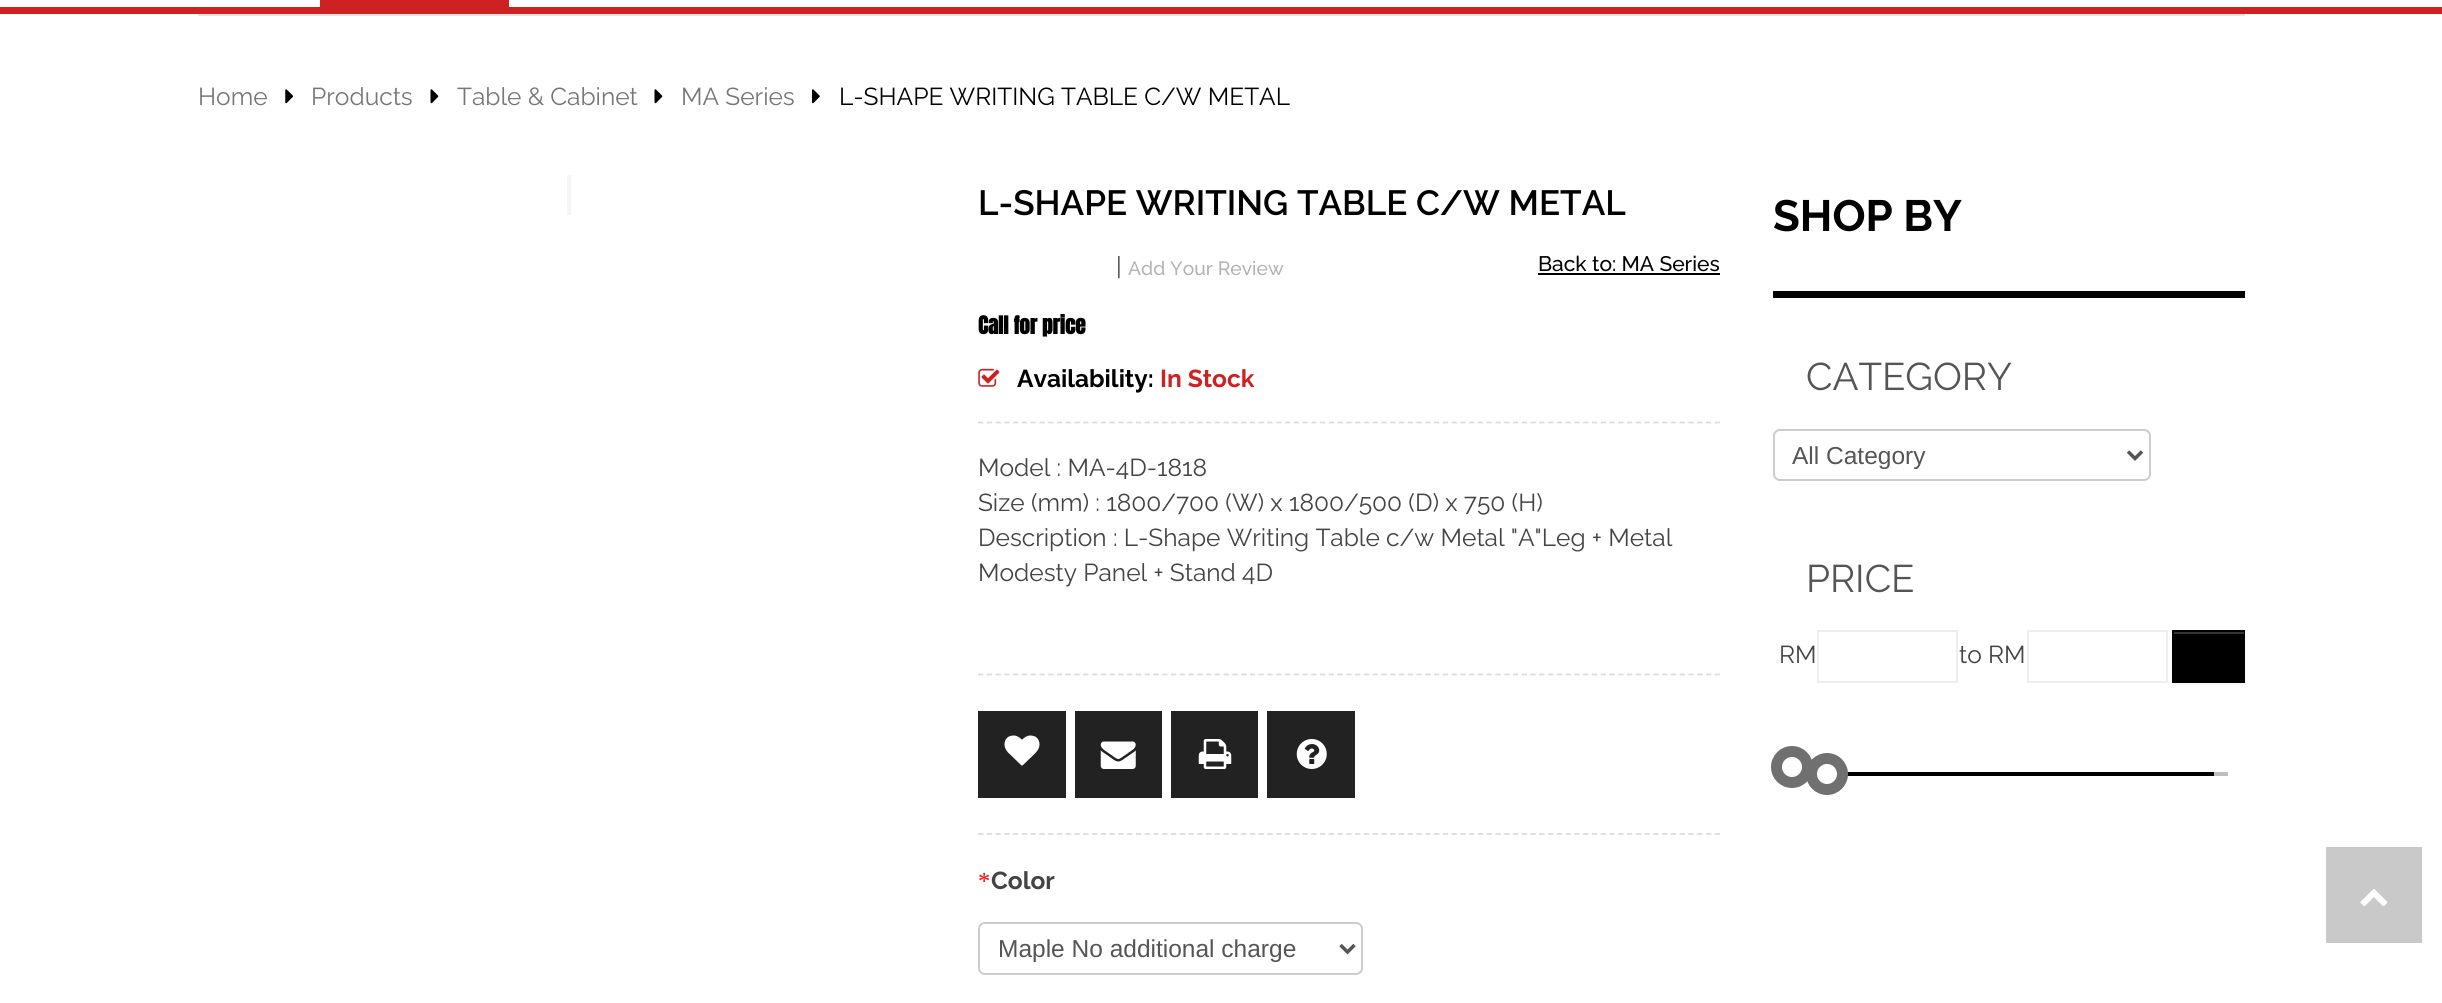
#include <cairo.h>
#include <math.h>
#include <stddef.h>

typedef struct { double x, y; const char *s; } line_t;
typedef struct { double x, y, w, h; unsigned color; } box_t;

static void ink(cairo_t *ctx, unsigned color) {
    cairo_set_source_rgb(ctx, (color >> 16) / 255.0, (color >> 8 & 255) / 255.0, (color & 255) / 255.0);
}

static void round_path(cairo_t *ctx, double x, double y, double w, double h, double r) {
    cairo_new_sub_path(ctx);
    cairo_arc(ctx, x + w - r, y + h - r, r, 0, M_PI / 2);
    cairo_arc(ctx, x + r, y + h - r, r, M_PI / 2, M_PI);
    cairo_arc(ctx, x + r, y + r, r, M_PI, 1.5 * M_PI);
    cairo_arc(ctx, x + w - r, y + r, r, 1.5 * M_PI, 2 * M_PI);
    cairo_close_path(ctx);
}

static void blur_box(cairo_t *ctx, double x, double y, double w, double h, double r, double blur, double alpha) {
    cairo_push_group_with_content(ctx, CAIRO_CONTENT_ALPHA);
    cairo_set_operator(ctx, CAIRO_OPERATOR_SOURCE);
    for (int i = 15; i >= -15 && fmin(w, h) + blur * i / 3 > 0; i -= 2) {
        double e = blur * i / 6;
        cairo_set_source_rgba(ctx, 0, 0, 0, alpha * erfc((i - 1) / 8.5) / 2);
        round_path(ctx, x - e, y - e, w + 2 * e, h + 2 * e, fmax(0, fmin(r + e + blur * .6, fmin(w, h) / 2 + e)));
        cairo_fill(ctx);
    }
    cairo_pattern_t *soft = cairo_pop_group(ctx);
    cairo_mask(ctx, soft);
    cairo_pattern_destroy(soft);
}

static void paste(cairo_t *ctx, const char *path, double x, double y, double w, double h) {
    cairo_surface_t *image = cairo_image_surface_create_from_png(path);
    cairo_save(ctx);
    cairo_set_source_surface(ctx, image, x, y);
    cairo_rectangle(ctx, x, y, w, h);
    cairo_fill(ctx);
    cairo_restore(ctx);
    cairo_surface_destroy(image);
}

int main(void) {
    cairo_surface_t *surface = cairo_image_surface_create(CAIRO_FORMAT_RGB24, 2442, 1003);
    cairo_t *ctx = cairo_create(surface);
    cairo_font_options_t *options = cairo_font_options_create();
    cairo_font_options_set_hint_metrics(options, CAIRO_HINT_METRICS_OFF);
    cairo_font_options_set_hint_style(options, CAIRO_HINT_STYLE_NONE);
    cairo_set_font_options(ctx, options);
    cairo_set_miter_limit(ctx, 4);
    ink(ctx, 0xFFFFFF);
    cairo_paint(ctx);
    {
        static const box_t items[] = {
            {0, 7, 2442, 7, 0xCD2122},
            {320, 0, 189, 7, 0xCD2122},
            {198, 14, 2047, 2, 0xE5E5E5},
        };
        for (size_t i = 0; i < sizeof items / sizeof *items; i++) {
            ink(ctx, items[i].color);
            cairo_rectangle(ctx, items[i].x, items[i].y, items[i].w, items[i].h);
            cairo_fill(ctx);
        }
    }
    cairo_select_font_face(ctx, "Raleway", CAIRO_FONT_SLANT_NORMAL, CAIRO_FONT_WEIGHT_NORMAL);
    cairo_set_font_size(ctx, 24.5);
    ink(ctx, 0x777777);
    cairo_move_to(ctx, 198, 105);
    cairo_show_text(ctx, "Home");
    paste(ctx, "media/1.png", 285, 89, 9, 15);
    cairo_move_to(ctx, 311, 105);
    cairo_show_text(ctx, "Products");
    paste(ctx, "media/2.png", 430, 89, 9, 15);
    cairo_move_to(ctx, 457, 105);
    cairo_show_text(ctx, "Table & Cabinet");
    paste(ctx, "media/2.png", 654, 89, 9, 15);
    cairo_move_to(ctx, 681, 105);
    cairo_show_text(ctx, "MA Series");
    paste(ctx, "media/3.png", 812, 89, 8, 15);
    ink(ctx, 0x000000);
    cairo_move_to(ctx, 839, 105);
    cairo_show_text(ctx, "L-SHAPE WRITING TABLE C/W METAL");
    ink(ctx, 0xF5F5F5);
    cairo_rectangle(ctx, 567, 175, 4, 40);
    cairo_fill(ctx);
    cairo_select_font_face(ctx, "Raleway SemiBold", CAIRO_FONT_SLANT_NORMAL, CAIRO_FONT_WEIGHT_NORMAL);
    cairo_set_font_size(ctx, 35);
    ink(ctx, 0x000000);
    cairo_move_to(ctx, 978, 215);
    cairo_show_text(ctx, "L-SHAPE WRITING TABLE C/W METAL");
    cairo_select_font_face(ctx, "Raleway", CAIRO_FONT_SLANT_NORMAL, CAIRO_FONT_WEIGHT_NORMAL);
    cairo_set_font_size(ctx, 24.5);
    ink(ctx, 0x444444);
    cairo_move_to(ctx, 1116, 275);
    cairo_show_text(ctx, "|");
    cairo_select_font_face(ctx, "Raleway Medium", CAIRO_FONT_SLANT_NORMAL, CAIRO_FONT_WEIGHT_NORMAL);
    cairo_set_font_size(ctx, 19.25);
    ink(ctx, 0xB3B3B3);
    cairo_move_to(ctx, 1128, 275);
    cairo_show_text(ctx, "Add Your Review");
    cairo_set_font_size(ctx, 21);
    ink(ctx, 0x000000);
    cairo_move_to(ctx, 1538, 271);
    cairo_show_text(ctx, "Back to: MA Series");
    cairo_rectangle(ctx, 1538, 273, 182, 2);
    cairo_fill(ctx);
    cairo_select_font_face(ctx, "Anton", CAIRO_FONT_SLANT_NORMAL, CAIRO_FONT_WEIGHT_BOLD);
    cairo_move_to(ctx, 978, 334);
    cairo_show_text(ctx, "Call for price");
    paste(ctx, "media/4.png", 978, 368, 22, 19);
    cairo_select_font_face(ctx, "Raleway", CAIRO_FONT_SLANT_NORMAL, CAIRO_FONT_WEIGHT_BOLD);
    cairo_set_font_size(ctx, 24.5);
    cairo_move_to(ctx, 1017, 387);
    cairo_show_text(ctx, "Availability:");
    ink(ctx, 0xCD2122);
    cairo_move_to(ctx, 1160, 387);
    cairo_show_text(ctx, "In Stock");
    cairo_new_path(ctx);
    cairo_move_to(ctx, 978, 422.5);
    cairo_line_to(ctx, 1720, 422.5);
    ink(ctx, 0xDDDDDD);
    cairo_set_line_width(ctx, 1.8);
    cairo_set_dash(ctx, (double[]){5.25, 3.52}, 2, 0);
    cairo_stroke(ctx);
    cairo_new_path(ctx);
    cairo_move_to(ctx, 978, 674.5);
    cairo_line_to(ctx, 1720, 674.5);
    cairo_stroke(ctx);
    cairo_select_font_face(ctx, "Raleway", CAIRO_FONT_SLANT_NORMAL, CAIRO_FONT_WEIGHT_NORMAL);
    ink(ctx, 0x444444);
    {
        static const line_t items[] = {
            {978, 476, "Model : MA-4D-1818"},
            {978, 511, "Size (mm) : 1800/700 (W) x 1800/500 (D) x 750 (H)"},
            {978, 546, "Description : L-Shape Writing Table c/w Metal \"A\"Leg + Metal"},
            {978, 581, "Modesty Panel + Stand 4D"},
        };
        for (size_t i = 0; i < sizeof items / sizeof *items; i++) {
            cairo_move_to(ctx, items[i].x, items[i].y);
            cairo_show_text(ctx, items[i].s);
        }
    }
    cairo_new_path(ctx);
    cairo_move_to(ctx, 978, 834);
    cairo_line_to(ctx, 1720, 834);
    ink(ctx, 0xDDDDDD);
    cairo_stroke(ctx);
    ink(ctx, 0x222222);
    cairo_rectangle(ctx, 978, 711, 88, 87);
    cairo_fill(ctx);
    paste(ctx, "media/5.png", 1004, 735, 36, 31);
    cairo_rectangle(ctx, 1075, 711, 87, 87);
    cairo_fill(ctx);
    paste(ctx, "media/6.png", 1100, 741, 36, 28);
    cairo_rectangle(ctx, 1171, 711, 87, 87);
    cairo_fill(ctx);
    paste(ctx, "media/7.png", 1198, 739, 34, 30);
    cairo_rectangle(ctx, 1267, 711, 88, 87);
    cairo_fill(ctx);
    paste(ctx, "media/8.png", 1296, 739, 31, 30);
    cairo_select_font_face(ctx, "Liberation Serif", CAIRO_FONT_SLANT_NORMAL, CAIRO_FONT_WEIGHT_NORMAL);
    ink(ctx, 0xFF0000);
    cairo_move_to(ctx, 978, 889);
    cairo_show_text(ctx, "*");
    cairo_select_font_face(ctx, "Raleway", CAIRO_FONT_SLANT_NORMAL, CAIRO_FONT_WEIGHT_BOLD);
    ink(ctx, 0x444444);
    cairo_move_to(ctx, 991, 889);
    cairo_show_text(ctx, "Color");
    round_path(ctx, 979, 923, 383, 51, 6);
    ink(ctx, 0xCCCCCC);
    cairo_set_line_width(ctx, 2);
    cairo_set_dash(ctx, NULL, 0, 0);
    cairo_stroke(ctx);
    cairo_new_path(ctx);
    cairo_move_to(ctx, 1340.5, 945);
    cairo_line_to(ctx, 1347.5, 952);
    cairo_line_to(ctx, 1354.5, 945);
    ink(ctx, 0x555555);
    cairo_set_line_width(ctx, 3.5);
    cairo_stroke(ctx);
    cairo_select_font_face(ctx, "Liberation Sans", CAIRO_FONT_SLANT_NORMAL, CAIRO_FONT_WEIGHT_NORMAL);
    cairo_move_to(ctx, 998, 957);
    cairo_show_text(ctx, "Maple No additional charge");
    ink(ctx, 0x000000);
    cairo_rectangle(ctx, 1773, 291, 472, 7);
    cairo_fill(ctx);
    cairo_select_font_face(ctx, "Raleway", CAIRO_FONT_SLANT_NORMAL, CAIRO_FONT_WEIGHT_BOLD);
    cairo_set_font_size(ctx, 43.75);
    cairo_move_to(ctx, 1773, 231);
    cairo_show_text(ctx, "SHOP BY");
    cairo_select_font_face(ctx, "Raleway", CAIRO_FONT_SLANT_NORMAL, CAIRO_FONT_WEIGHT_NORMAL);
    cairo_set_font_size(ctx, 38.5);
    ink(ctx, 0x555555);
    cairo_move_to(ctx, 1806, 390);
    cairo_show_text(ctx, "CATEGORY");
    round_path(ctx, 1774, 430, 376, 50, 6);
    ink(ctx, 0xCCCCCC);
    cairo_set_line_width(ctx, 2);
    cairo_stroke(ctx);
    cairo_new_path(ctx);
    cairo_move_to(ctx, 2128, 451.5);
    cairo_line_to(ctx, 2135, 458.5);
    cairo_line_to(ctx, 2142, 451.5);
    ink(ctx, 0x555555);
    cairo_set_line_width(ctx, 3.5);
    cairo_stroke(ctx);
    cairo_select_font_face(ctx, "Liberation Sans", CAIRO_FONT_SLANT_NORMAL, CAIRO_FONT_WEIGHT_NORMAL);
    cairo_set_font_size(ctx, 24.5);
    cairo_move_to(ctx, 1792, 464);
    cairo_show_text(ctx, "All Category");
    cairo_select_font_face(ctx, "Raleway", CAIRO_FONT_SLANT_NORMAL, CAIRO_FONT_WEIGHT_NORMAL);
    cairo_set_font_size(ctx, 38.5);
    cairo_move_to(ctx, 1806, 592);
    cairo_show_text(ctx, "PRICE");
    cairo_set_font_size(ctx, 24.5);
    ink(ctx, 0x444444);
    cairo_move_to(ctx, 1779, 663);
    cairo_show_text(ctx, "RM");
    cairo_rectangle(ctx, 1818, 631, 139, 51);
    ink(ctx, 0xEEEEEE);
    cairo_set_line_width(ctx, 2);
    cairo_stroke(ctx);
    ink(ctx, 0x444444);
    cairo_move_to(ctx, 1959, 663);
    cairo_show_text(ctx, "to RM");
    ink(ctx, 0x000000);
    blur_box(ctx, 2172, 632, 73, 52, 0, 2, 0.05);
    cairo_rectangle(ctx, 2028, 631, 139, 51);
    ink(ctx, 0xEEEEEE);
    cairo_stroke(ctx);
    {
        static const box_t items[] = {
            {2172, 630, 73, 53, 0x000000},
            {2174, 632, 70, 2, 0x333333},
            {1847, 772, 367, 4, 0x000000},
        };
        for (size_t i = 0; i < sizeof items / sizeof *items; i++) {
            ink(ctx, items[i].color);
            cairo_rectangle(ctx, items[i].x, items[i].y, items[i].w, items[i].h);
            cairo_fill(ctx);
        }
    }
    ink(ctx, 0xFFFFFF);
    cairo_arc(ctx, 1827, 774, 15.5, 0, 2 * M_PI);
    cairo_fill_preserve(ctx);
    ink(ctx, 0x707070);
    cairo_set_line_width(ctx, 11);
    cairo_stroke(ctx);
    ink(ctx, 0xFFFFFF);
    cairo_arc(ctx, 1792, 767, 15.5, 0, 2 * M_PI);
    cairo_fill_preserve(ctx);
    ink(ctx, 0x707070);
    cairo_stroke(ctx);
    ink(ctx, 0xBEBEBE);
    cairo_rectangle(ctx, 2214, 772, 14, 4);
    cairo_fill(ctx);
    ink(ctx, 0xC9C9C9);
    cairo_rectangle(ctx, 2326, 847, 96, 96);
    cairo_fill(ctx);
    paste(ctx, "media/9.png", 2360, 889, 28, 18);
    cairo_surface_write_to_png(surface, "image.png");
    cairo_font_options_destroy(options);
    cairo_destroy(ctx);
    cairo_surface_destroy(surface);
    return 0;
}
